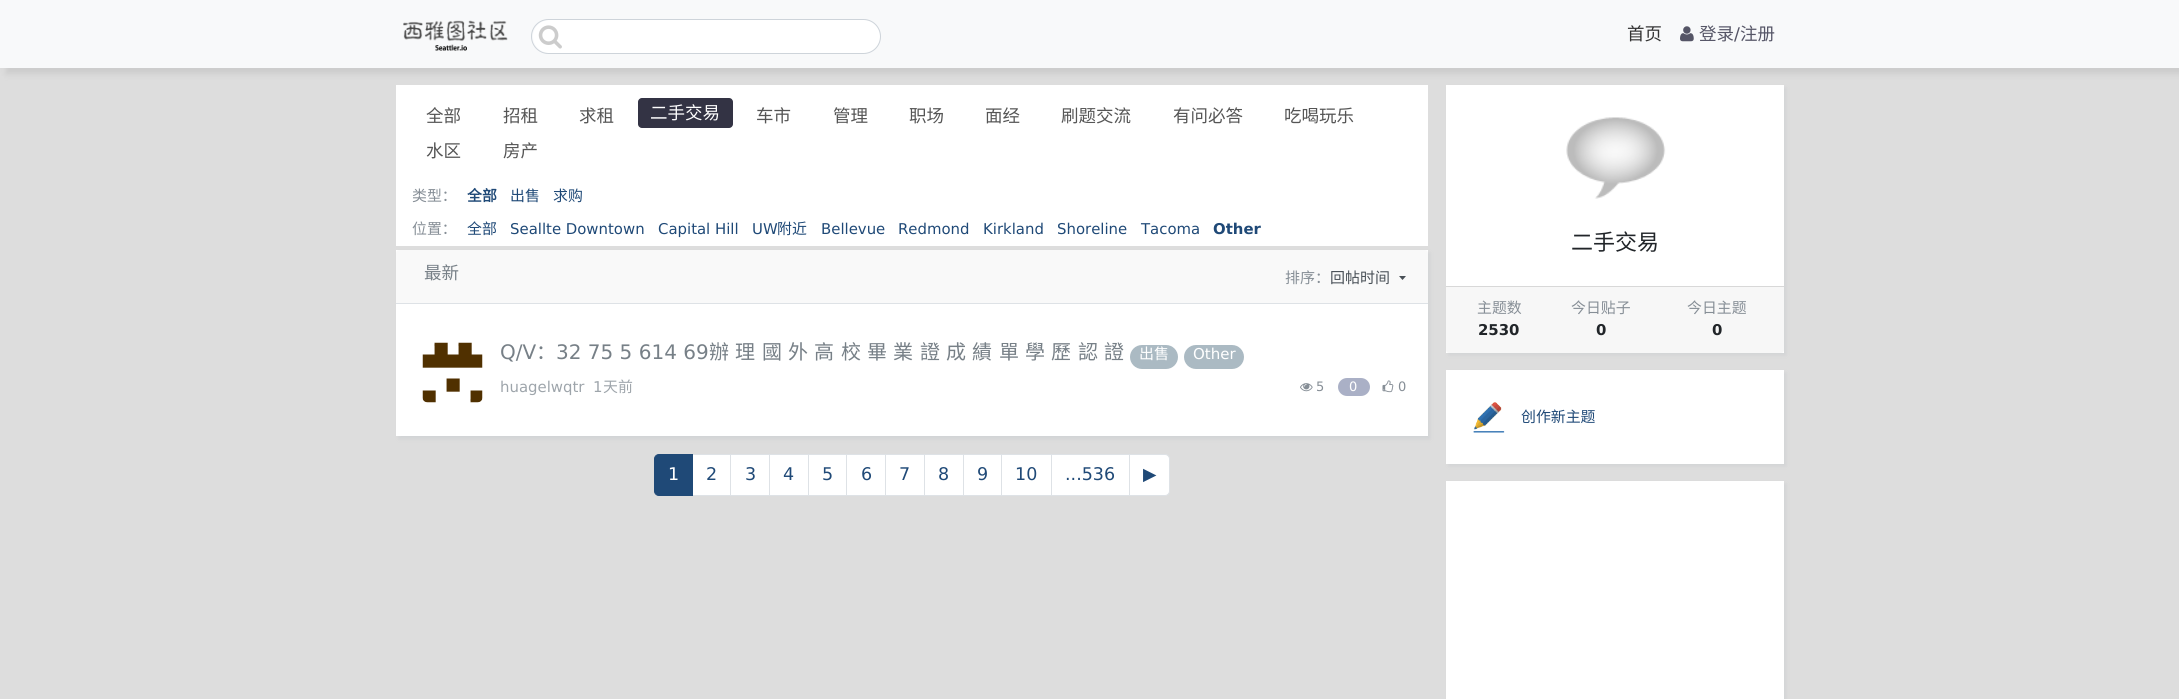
#include <cairo.h>
#include <math.h>
#include <stddef.h>

typedef struct { double x, y; const char *s; } line_t;

static void ink(cairo_t *ctx, unsigned color) {
    cairo_set_source_rgb(ctx, (color >> 16) / 255.0, (color >> 8 & 255) / 255.0, (color & 255) / 255.0);
}

static void round_path(cairo_t *ctx, double x, double y, double w, double h, double r) {
    cairo_new_sub_path(ctx);
    cairo_arc(ctx, x + w - r, y + h - r, r, 0, M_PI / 2);
    cairo_arc(ctx, x + r, y + h - r, r, M_PI / 2, M_PI);
    cairo_arc(ctx, x + r, y + r, r, M_PI, 1.5 * M_PI);
    cairo_arc(ctx, x + w - r, y + r, r, 1.5 * M_PI, 2 * M_PI);
    cairo_close_path(ctx);
}

static void blur_box(cairo_t *ctx, double x, double y, double w, double h, double r, double blur, double alpha) {
    cairo_push_group_with_content(ctx, CAIRO_CONTENT_ALPHA);
    cairo_set_operator(ctx, CAIRO_OPERATOR_SOURCE);
    for (int i = 15; i >= -15 && fmin(w, h) + blur * i / 3 > 0; i -= 2) {
        double e = blur * i / 6;
        cairo_set_source_rgba(ctx, 0, 0, 0, alpha * erfc((i - 1) / 8.5) / 2);
        round_path(ctx, x - e, y - e, w + 2 * e, h + 2 * e, fmax(0, fmin(r + e + blur * .6, fmin(w, h) / 2 + e)));
        cairo_fill(ctx);
    }
    cairo_pattern_t *soft = cairo_pop_group(ctx);
    cairo_mask(ctx, soft);
    cairo_pattern_destroy(soft);
}

static void paste(cairo_t *ctx, const char *path, double x, double y, double w, double h) {
    cairo_surface_t *image = cairo_image_surface_create_from_png(path);
    cairo_save(ctx);
    cairo_set_source_surface(ctx, image, x, y);
    cairo_rectangle(ctx, x, y, w, h);
    cairo_fill(ctx);
    cairo_restore(ctx);
    cairo_surface_destroy(image);
}

int main(void) {
    cairo_surface_t *surface = cairo_image_surface_create(CAIRO_FORMAT_RGB24, 2179, 699);
    cairo_t *ctx = cairo_create(surface);
    cairo_font_options_t *options = cairo_font_options_create();
    cairo_font_options_set_hint_metrics(options, CAIRO_HINT_METRICS_OFF);
    cairo_font_options_set_hint_style(options, CAIRO_HINT_STYLE_NONE);
    cairo_set_font_options(ctx, options);
    cairo_set_miter_limit(ctx, 4);
    ink(ctx, 0xDDDDDD);
    cairo_paint(ctx);
    ink(ctx, 0xCCCCCC);
    blur_box(ctx, 6, 6, 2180, 68, 0, 3, 1);
    ink(ctx, 0xF8F9FA);
    cairo_rectangle(ctx, 0, 0, 2179, 68);
    cairo_fill(ctx);
    paste(ctx, "media/1.png", 403, 20, 105, 31);
    ink(ctx, 0xFFFFFF);
    round_path(ctx, 533, 20, 347, 33, 16.5);
    cairo_fill(ctx);
    round_path(ctx, 531.5, 19.5, 349, 34, 17);
    ink(ctx, 0xCED4DA);
    cairo_set_line_width(ctx, 1);
    cairo_stroke(ctx);
    paste(ctx, "media/2.png", 538, 25, 24, 24);
    cairo_select_font_face(ctx, "Noto Sans CJK SC", CAIRO_FONT_SLANT_NORMAL, CAIRO_FONT_WEIGHT_NORMAL);
    cairo_set_font_size(ctx, 17.5);
    ink(ctx, 0x333333);
    cairo_move_to(ctx, 1627, 40);
    cairo_show_text(ctx, "首页");
    paste(ctx, "media/3.png", 1680, 26, 14, 16);
    ink(ctx, 0x555566);
    cairo_move_to(ctx, 1699, 40);
    cairo_show_text(ctx, "登录");
    cairo_select_font_face(ctx, "DejaVu Sans", CAIRO_FONT_SLANT_NORMAL, CAIRO_FONT_WEIGHT_NORMAL);
    cairo_move_to(ctx, 1734, 40);
    cairo_show_text(ctx, "/");
    cairo_select_font_face(ctx, "Noto Sans CJK SC", CAIRO_FONT_SLANT_NORMAL, CAIRO_FONT_WEIGHT_NORMAL);
    cairo_move_to(ctx, 1740, 40);
    cairo_show_text(ctx, "注册");
    ink(ctx, 0xFFFFFF);
    cairo_rectangle(ctx, 396, 85, 1032, 161);
    cairo_fill(ctx);
    ink(ctx, 0x555555);
    {
        static const line_t items[] = {
            {426, 122, "全部"},
            {503, 122, "招租"},
            {579, 122, "求租"},
        };
        for (size_t i = 0; i < sizeof items / sizeof *items; i++) {
            cairo_move_to(ctx, items[i].x, items[i].y);
            cairo_show_text(ctx, items[i].s);
        }
    }
    ink(ctx, 0x333344);
    round_path(ctx, 638, 98, 95, 30, 4);
    cairo_fill(ctx);
    ink(ctx, 0xFFFFFF);
    cairo_move_to(ctx, 650, 119);
    cairo_show_text(ctx, "二手交易");
    ink(ctx, 0x555555);
    {
        static const line_t items[] = {
            {756, 122, "车市"},
            {833, 122, "管理"},
            {909, 122, "职场"},
            {985, 122, "面经"},
            {1061, 122, "刷题交流"},
            {1173, 122, "有问必答"},
            {1284, 122, "吃喝玩乐"},
            {426, 157, "水区"},
            {503, 157, "房产"},
        };
        for (size_t i = 0; i < sizeof items / sizeof *items; i++) {
            cairo_move_to(ctx, items[i].x, items[i].y);
            cairo_show_text(ctx, items[i].s);
        }
    }
    cairo_set_font_size(ctx, 14.9);
    ink(ctx, 0x868E96);
    cairo_move_to(ctx, 412, 201);
    cairo_show_text(ctx, "类型：");
    cairo_select_font_face(ctx, "Noto Sans CJK SC", CAIRO_FONT_SLANT_NORMAL, CAIRO_FONT_WEIGHT_BOLD);
    ink(ctx, 0x1F4977);
    cairo_move_to(ctx, 467, 201);
    cairo_show_text(ctx, "全部");
    cairo_select_font_face(ctx, "Noto Sans CJK SC", CAIRO_FONT_SLANT_NORMAL, CAIRO_FONT_WEIGHT_NORMAL);
    cairo_move_to(ctx, 510, 201);
    cairo_show_text(ctx, "出售");
    cairo_move_to(ctx, 553, 201);
    cairo_show_text(ctx, "求购");
    ink(ctx, 0x868E96);
    cairo_move_to(ctx, 412, 234);
    cairo_show_text(ctx, "位置：");
    ink(ctx, 0x1F4977);
    cairo_move_to(ctx, 467, 234);
    cairo_show_text(ctx, "全部");
    cairo_select_font_face(ctx, "DejaVu Sans", CAIRO_FONT_SLANT_NORMAL, CAIRO_FONT_WEIGHT_NORMAL);
    {
        static const line_t items[] = {
            {510, 234, "Seallte Downtown"},
            {658, 234, "Capital Hill"},
            {752, 234, "UW"},
        };
        for (size_t i = 0; i < sizeof items / sizeof *items; i++) {
            cairo_move_to(ctx, items[i].x, items[i].y);
            cairo_show_text(ctx, items[i].s);
        }
    }
    cairo_select_font_face(ctx, "Noto Sans CJK SC", CAIRO_FONT_SLANT_NORMAL, CAIRO_FONT_WEIGHT_NORMAL);
    cairo_move_to(ctx, 777, 234);
    cairo_show_text(ctx, "附近");
    cairo_select_font_face(ctx, "DejaVu Sans", CAIRO_FONT_SLANT_NORMAL, CAIRO_FONT_WEIGHT_NORMAL);
    {
        static const line_t items[] = {
            {821, 234, "Bellevue"},
            {898, 234, "Redmond"},
            {983, 234, "Kirkland"},
            {1057, 234, "Shoreline"},
            {1141, 234, "Tacoma"},
        };
        for (size_t i = 0; i < sizeof items / sizeof *items; i++) {
            cairo_move_to(ctx, items[i].x, items[i].y);
            cairo_show_text(ctx, items[i].s);
        }
    }
    cairo_select_font_face(ctx, "DejaVu Sans", CAIRO_FONT_SLANT_NORMAL, CAIRO_FONT_WEIGHT_BOLD);
    cairo_move_to(ctx, 1213, 234);
    cairo_show_text(ctx, "Other");
    ink(ctx, 0xADB5BD);
    blur_box(ctx, 399, 253, 1031, 186, 0, 2, 0.25);
    ink(ctx, 0xFFFFFF);
    cairo_rectangle(ctx, 396, 250, 1032, 186);
    cairo_fill(ctx);
    ink(ctx, 0xF9F9F9);
    cairo_new_path(ctx);
    cairo_move_to(ctx, 399, 250);
    cairo_line_to(ctx, 1425, 250);
    cairo_curve_to(ctx, 1426.5, 250, 1428, 251.5, 1428, 253);
    cairo_line_to(ctx, 1428, 304);
    cairo_line_to(ctx, 396, 304);
    cairo_line_to(ctx, 396, 253);
    cairo_curve_to(ctx, 396, 251.5, 397.5, 250, 399, 250);
    cairo_close_path(ctx);
    cairo_fill(ctx);
    ink(ctx, 0xDEE2E6);
    cairo_rectangle(ctx, 396, 303, 1032, 1);
    cairo_fill(ctx);
    cairo_select_font_face(ctx, "Noto Sans CJK SC", CAIRO_FONT_SLANT_NORMAL, CAIRO_FONT_WEIGHT_NORMAL);
    cairo_set_font_size(ctx, 17.5);
    ink(ctx, 0x778087);
    cairo_move_to(ctx, 424, 279);
    cairo_show_text(ctx, "最新");
    cairo_set_font_size(ctx, 15);
    ink(ctx, 0x868E96);
    cairo_move_to(ctx, 1285, 283);
    cairo_show_text(ctx, "排序：");
    ink(ctx, 0x495057);
    cairo_move_to(ctx, 1330, 283);
    cairo_show_text(ctx, "回帖时间");
    cairo_new_path(ctx);
    cairo_move_to(ctx, 1399, 276);
    cairo_line_to(ctx, 1406, 276);
    cairo_line_to(ctx, 1402.5, 280);
    cairo_close_path(ctx);
    cairo_fill(ctx);
    paste(ctx, "media/4.png", 422, 342, 61, 61);
    cairo_select_font_face(ctx, "DejaVu Sans", CAIRO_FONT_SLANT_NORMAL, CAIRO_FONT_WEIGHT_NORMAL);
    cairo_set_font_size(ctx, 20);
    ink(ctx, 0x778087);
    cairo_move_to(ctx, 500, 359);
    cairo_show_text(ctx, "Q/V");
    cairo_select_font_face(ctx, "Noto Sans CJK SC", CAIRO_FONT_SLANT_NORMAL, CAIRO_FONT_WEIGHT_NORMAL);
    cairo_move_to(ctx, 536, 359);
    cairo_show_text(ctx, "：");
    cairo_select_font_face(ctx, "DejaVu Sans", CAIRO_FONT_SLANT_NORMAL, CAIRO_FONT_WEIGHT_NORMAL);
    cairo_move_to(ctx, 556, 359);
    cairo_show_text(ctx, "32 75 5 614 69");
    cairo_select_font_face(ctx, "Noto Sans CJK SC", CAIRO_FONT_SLANT_NORMAL, CAIRO_FONT_WEIGHT_NORMAL);
    {
        static const line_t items[] = {
            {709, 359, "辦"},
            {735, 359, "理"},
            {762, 359, "國"},
            {788, 359, "外"},
            {814, 359, "高"},
            {841, 359, "校"},
            {867, 359, "畢"},
            {893, 359, "業"},
            {920, 359, "證"},
            {946, 359, "成"},
            {972, 359, "績"},
            {999, 359, "單"},
            {1025, 359, "學"},
            {1051, 359, "歷"},
            {1078, 359, "認"},
            {1104, 359, "證"},
        };
        for (size_t i = 0; i < sizeof items / sizeof *items; i++) {
            cairo_move_to(ctx, items[i].x, items[i].y);
            cairo_show_text(ctx, items[i].s);
        }
    }
    ink(ctx, 0xABBAC3);
    round_path(ctx, 1130, 345, 48, 24, 12);
    cairo_fill(ctx);
    cairo_set_font_size(ctx, 15);
    ink(ctx, 0xFFFFFF);
    cairo_move_to(ctx, 1139, 359);
    cairo_show_text(ctx, "出售");
    ink(ctx, 0xABBAC3);
    round_path(ctx, 1184, 345, 60, 24, 12);
    cairo_fill(ctx);
    cairo_select_font_face(ctx, "DejaVu Sans", CAIRO_FONT_SLANT_NORMAL, CAIRO_FONT_WEIGHT_NORMAL);
    ink(ctx, 0xFFFFFF);
    cairo_move_to(ctx, 1193, 359);
    cairo_show_text(ctx, "Other");
    cairo_set_font_size(ctx, 14.9);
    ink(ctx, 0x9EA5AB);
    cairo_move_to(ctx, 500, 392);
    cairo_show_text(ctx, "huagelwqtr");
    cairo_move_to(ctx, 593, 392);
    cairo_show_text(ctx, "1");
    cairo_select_font_face(ctx, "Noto Sans CJK SC", CAIRO_FONT_SLANT_NORMAL, CAIRO_FONT_WEIGHT_NORMAL);
    cairo_move_to(ctx, 603, 392);
    cairo_show_text(ctx, "天前");
    paste(ctx, "media/5.png", 1300, 383, 13, 9);
    cairo_select_font_face(ctx, "DejaVu Sans", CAIRO_FONT_SLANT_NORMAL, CAIRO_FONT_WEIGHT_NORMAL);
    cairo_set_font_size(ctx, 13);
    ink(ctx, 0x868E96);
    cairo_move_to(ctx, 1316, 391);
    cairo_show_text(ctx, "5");
    ink(ctx, 0xAAB0C6);
    round_path(ctx, 1338, 378, 32, 18, 9);
    cairo_fill(ctx);
    ink(ctx, 0xFFFFFF);
    cairo_move_to(ctx, 1349, 391);
    cairo_show_text(ctx, "0");
    paste(ctx, "media/6.png", 1382, 380, 12, 13);
    ink(ctx, 0x868E96);
    cairo_move_to(ctx, 1398, 391);
    cairo_show_text(ctx, "0");
    ink(ctx, 0xFFFFFF);
    cairo_rectangle(ctx, 693, 455, 37, 40);
    cairo_fill(ctx);
    cairo_rectangle(ctx, 691.5, 454.5, 39, 41);
    ink(ctx, 0xDEE2E6);
    cairo_stroke(ctx);
    ink(ctx, 0x1F4977);
    cairo_new_path(ctx);
    cairo_move_to(ctx, 659, 454.5);
    cairo_line_to(ctx, 692.5, 454.5);
    cairo_line_to(ctx, 692.5, 495.5);
    cairo_line_to(ctx, 659, 495.5);
    cairo_curve_to(ctx, 656.5, 495.5, 654.5, 493.5, 654.5, 491);
    cairo_line_to(ctx, 654.5, 459);
    cairo_curve_to(ctx, 654.5, 456.5, 656.5, 454.5, 659, 454.5);
    cairo_close_path(ctx);
    cairo_fill_preserve(ctx);
    cairo_stroke(ctx);
    cairo_set_font_size(ctx, 17.5);
    ink(ctx, 0xFFFFFF);
    cairo_move_to(ctx, 668, 480);
    cairo_show_text(ctx, "1");
    ink(ctx, 0x1F4977);
    cairo_move_to(ctx, 706, 480);
    cairo_show_text(ctx, "2");
    ink(ctx, 0xFFFFFF);
    cairo_rectangle(ctx, 730.5, 454.5, 39, 41);
    cairo_fill_preserve(ctx);
    ink(ctx, 0xDEE2E6);
    cairo_stroke(ctx);
    ink(ctx, 0x1F4977);
    cairo_move_to(ctx, 745, 480);
    cairo_show_text(ctx, "3");
    ink(ctx, 0xFFFFFF);
    cairo_rectangle(ctx, 769.5, 454.5, 39, 41);
    cairo_fill_preserve(ctx);
    ink(ctx, 0xDEE2E6);
    cairo_stroke(ctx);
    ink(ctx, 0x1F4977);
    cairo_move_to(ctx, 783, 480);
    cairo_show_text(ctx, "4");
    ink(ctx, 0xFFFFFF);
    cairo_rectangle(ctx, 809, 455, 37, 40);
    cairo_fill(ctx);
    cairo_rectangle(ctx, 808.5, 454.5, 39, 41);
    ink(ctx, 0xDEE2E6);
    cairo_stroke(ctx);
    ink(ctx, 0x1F4977);
    cairo_move_to(ctx, 822, 480);
    cairo_show_text(ctx, "5");
    ink(ctx, 0xFFFFFF);
    cairo_rectangle(ctx, 846.5, 454.5, 39, 41);
    cairo_fill_preserve(ctx);
    ink(ctx, 0xDEE2E6);
    cairo_stroke(ctx);
    ink(ctx, 0x1F4977);
    cairo_move_to(ctx, 861, 480);
    cairo_show_text(ctx, "6");
    ink(ctx, 0xFFFFFF);
    cairo_rectangle(ctx, 885.5, 454.5, 39, 41);
    cairo_fill_preserve(ctx);
    ink(ctx, 0xDEE2E6);
    cairo_stroke(ctx);
    ink(ctx, 0x1F4977);
    cairo_move_to(ctx, 899, 480);
    cairo_show_text(ctx, "7");
    ink(ctx, 0xFFFFFF);
    cairo_rectangle(ctx, 924.5, 454.5, 39, 41);
    cairo_fill_preserve(ctx);
    ink(ctx, 0xDEE2E6);
    cairo_stroke(ctx);
    ink(ctx, 0x1F4977);
    cairo_move_to(ctx, 938, 480);
    cairo_show_text(ctx, "8");
    ink(ctx, 0xFFFFFF);
    cairo_rectangle(ctx, 964, 455, 37, 40);
    cairo_fill(ctx);
    cairo_rectangle(ctx, 963.5, 454.5, 39, 41);
    ink(ctx, 0xDEE2E6);
    cairo_stroke(ctx);
    ink(ctx, 0x1F4977);
    cairo_move_to(ctx, 977, 480);
    cairo_show_text(ctx, "9");
    ink(ctx, 0xFFFFFF);
    cairo_rectangle(ctx, 1002, 455, 49, 40);
    cairo_fill(ctx);
    cairo_rectangle(ctx, 1001.5, 454.5, 51, 41);
    ink(ctx, 0xDEE2E6);
    cairo_stroke(ctx);
    ink(ctx, 0x1F4977);
    cairo_move_to(ctx, 1015, 480);
    cairo_show_text(ctx, "10");
    ink(ctx, 0xFFFFFF);
    cairo_rectangle(ctx, 1051.5, 454.5, 78, 41);
    cairo_fill_preserve(ctx);
    ink(ctx, 0xDEE2E6);
    cairo_stroke(ctx);
    ink(ctx, 0x1F4977);
    cairo_move_to(ctx, 1065, 480);
    cairo_show_text(ctx, "...536");
    ink(ctx, 0xFFFFFF);
    cairo_new_path(ctx);
    cairo_move_to(ctx, 1129.5, 454.5);
    cairo_line_to(ctx, 1165, 454.5);
    cairo_curve_to(ctx, 1167.5, 454.5, 1169.5, 456.5, 1169.5, 459);
    cairo_line_to(ctx, 1169.5, 491);
    cairo_curve_to(ctx, 1169.5, 493.5, 1167.5, 495.5, 1165, 495.5);
    cairo_line_to(ctx, 1129.5, 495.5);
    cairo_close_path(ctx);
    cairo_fill_preserve(ctx);
    ink(ctx, 0xDEE2E6);
    cairo_stroke(ctx);
    ink(ctx, 0x1F4977);
    cairo_move_to(ctx, 1143, 480);
    cairo_show_text(ctx, "▶");
    ink(ctx, 0xADB5BD);
    blur_box(ctx, 1449, 88, 337, 267, 0, 2, 0.25);
    ink(ctx, 0xFFFFFF);
    cairo_rectangle(ctx, 1446, 85, 338, 268);
    cairo_fill(ctx);
    paste(ctx, "media/7.png", 1566, 117, 100, 82);
    cairo_select_font_face(ctx, "Noto Sans CJK SC", CAIRO_FONT_SLANT_NORMAL, CAIRO_FONT_WEIGHT_NORMAL);
    cairo_set_font_size(ctx, 22);
    ink(ctx, 0x212529);
    cairo_move_to(ctx, 1571, 250);
    cairo_show_text(ctx, "二手交易");
    ink(ctx, 0xF7F7F7);
    cairo_new_path(ctx);
    cairo_move_to(ctx, 1446, 286);
    cairo_line_to(ctx, 1784, 286);
    cairo_line_to(ctx, 1784, 350);
    cairo_curve_to(ctx, 1784, 351.5, 1782.5, 353, 1781, 353);
    cairo_line_to(ctx, 1449, 353);
    cairo_curve_to(ctx, 1447.5, 353, 1446, 351.5, 1446, 350);
    cairo_close_path(ctx);
    cairo_fill(ctx);
    ink(ctx, 0xD8D8D8);
    cairo_rectangle(ctx, 1446, 286, 338, 1);
    cairo_fill(ctx);
    cairo_set_font_size(ctx, 14.9);
    ink(ctx, 0x868E96);
    cairo_move_to(ctx, 1477, 313);
    cairo_show_text(ctx, "主题数");
    cairo_select_font_face(ctx, "DejaVu Sans", CAIRO_FONT_SLANT_NORMAL, CAIRO_FONT_WEIGHT_BOLD);
    ink(ctx, 0x212529);
    cairo_move_to(ctx, 1478, 335);
    cairo_show_text(ctx, "2530");
    cairo_select_font_face(ctx, "Noto Sans CJK SC", CAIRO_FONT_SLANT_NORMAL, CAIRO_FONT_WEIGHT_NORMAL);
    ink(ctx, 0x868E96);
    cairo_move_to(ctx, 1571, 313);
    cairo_show_text(ctx, "今日贴子");
    cairo_select_font_face(ctx, "DejaVu Sans", CAIRO_FONT_SLANT_NORMAL, CAIRO_FONT_WEIGHT_BOLD);
    ink(ctx, 0x212529);
    cairo_move_to(ctx, 1596, 335);
    cairo_show_text(ctx, "0");
    cairo_select_font_face(ctx, "Noto Sans CJK SC", CAIRO_FONT_SLANT_NORMAL, CAIRO_FONT_WEIGHT_NORMAL);
    ink(ctx, 0x868E96);
    cairo_move_to(ctx, 1687, 313);
    cairo_show_text(ctx, "今日主题");
    cairo_select_font_face(ctx, "DejaVu Sans", CAIRO_FONT_SLANT_NORMAL, CAIRO_FONT_WEIGHT_BOLD);
    ink(ctx, 0x212529);
    cairo_move_to(ctx, 1712, 335);
    cairo_show_text(ctx, "0");
    ink(ctx, 0xADB5BD);
    blur_box(ctx, 1449, 373, 337, 93, 0, 2, 0.25);
    ink(ctx, 0xFFFFFF);
    cairo_rectangle(ctx, 1446, 370, 338, 94);
    cairo_fill(ctx);
    paste(ctx, "media/8.png", 1473, 402, 32, 31);
    cairo_select_font_face(ctx, "Noto Sans CJK SC", CAIRO_FONT_SLANT_NORMAL, CAIRO_FONT_WEIGHT_NORMAL);
    ink(ctx, 0x1F4977);
    cairo_move_to(ctx, 1521, 422);
    cairo_show_text(ctx, "创作新主题");
    ink(ctx, 0xADB5BD);
    blur_box(ctx, 1449, 484, 337, 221, 0, 2, 0.25);
    ink(ctx, 0xFFFFFF);
    cairo_rectangle(ctx, 1446, 481, 338, 218);
    cairo_fill(ctx);
    cairo_surface_write_to_png(surface, "image.png");
    cairo_font_options_destroy(options);
    cairo_destroy(ctx);
    cairo_surface_destroy(surface);
    return 0;
}
